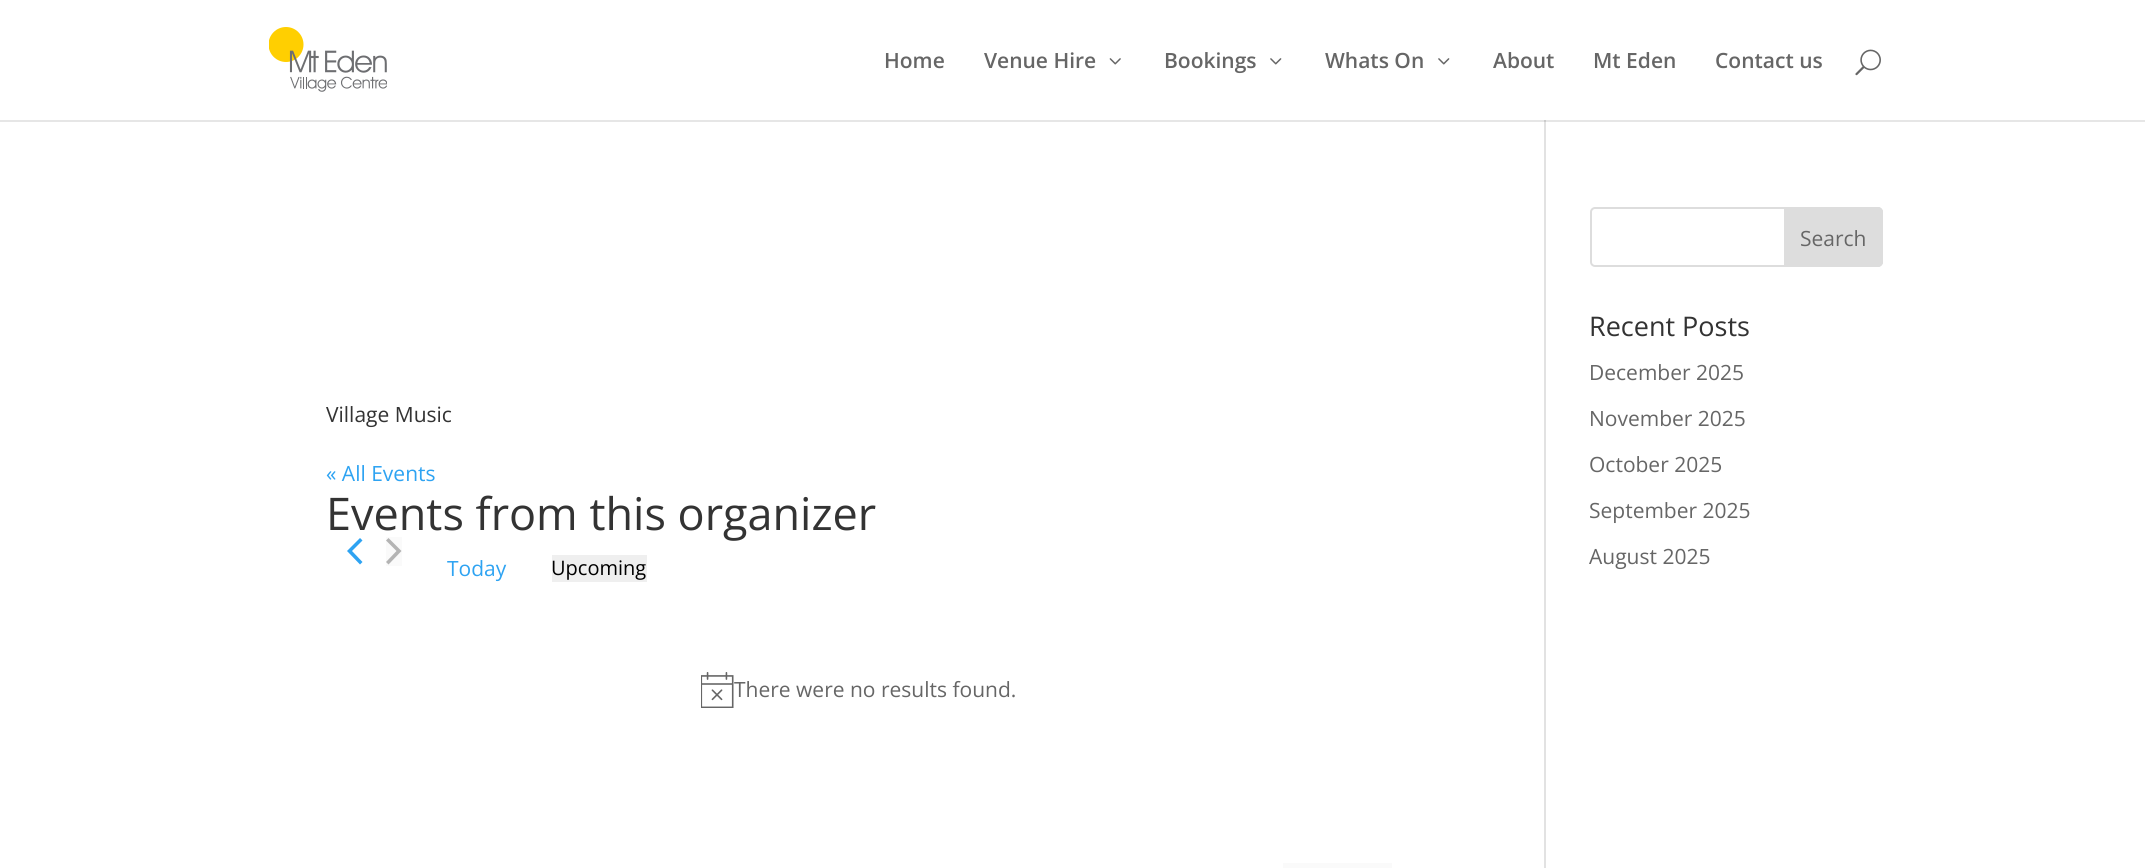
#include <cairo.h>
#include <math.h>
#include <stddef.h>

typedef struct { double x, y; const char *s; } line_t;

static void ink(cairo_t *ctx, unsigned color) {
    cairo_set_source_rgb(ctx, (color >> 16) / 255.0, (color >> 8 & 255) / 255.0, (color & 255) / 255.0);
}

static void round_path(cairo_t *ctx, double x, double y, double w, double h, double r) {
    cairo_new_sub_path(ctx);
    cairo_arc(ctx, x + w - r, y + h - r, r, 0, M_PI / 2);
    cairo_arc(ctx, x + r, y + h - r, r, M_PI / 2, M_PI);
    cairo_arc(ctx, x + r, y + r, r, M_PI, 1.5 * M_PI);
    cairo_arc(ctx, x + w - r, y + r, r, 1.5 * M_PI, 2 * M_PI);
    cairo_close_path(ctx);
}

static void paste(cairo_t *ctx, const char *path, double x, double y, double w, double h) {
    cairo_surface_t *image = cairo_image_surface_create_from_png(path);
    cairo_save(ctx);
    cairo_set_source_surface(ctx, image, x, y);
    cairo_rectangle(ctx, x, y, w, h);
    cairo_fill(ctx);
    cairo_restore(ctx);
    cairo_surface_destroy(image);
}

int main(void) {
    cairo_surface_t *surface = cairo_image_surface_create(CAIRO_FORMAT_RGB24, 2145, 868);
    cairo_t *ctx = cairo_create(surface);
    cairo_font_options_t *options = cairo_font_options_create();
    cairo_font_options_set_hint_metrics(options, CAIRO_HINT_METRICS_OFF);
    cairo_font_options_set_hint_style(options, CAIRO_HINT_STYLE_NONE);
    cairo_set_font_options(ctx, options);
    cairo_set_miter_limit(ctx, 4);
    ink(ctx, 0xFFFFFF);
    cairo_paint(ctx);
    ink(ctx, 0xE6E6E6);
    cairo_rectangle(ctx, 0, 120, 2145, 2);
    cairo_fill(ctx);
    paste(ctx, "media/1.png", 269, 27, 118, 65);
    cairo_select_font_face(ctx, "Open Sans SemiBold", CAIRO_FONT_SLANT_NORMAL, CAIRO_FONT_WEIGHT_NORMAL);
    cairo_set_font_size(ctx, 21);
    ink(ctx, 0x666666);
    cairo_move_to(ctx, 884, 68);
    cairo_show_text(ctx, "Home");
    cairo_move_to(ctx, 984, 68);
    cairo_show_text(ctx, "Venue Hire");
    paste(ctx, "media/2.png", 1109, 58, 12, 7);
    cairo_move_to(ctx, 1164, 68);
    cairo_show_text(ctx, "Bookings");
    paste(ctx, "media/3.png", 1270, 58, 12, 7);
    cairo_move_to(ctx, 1325, 68);
    cairo_show_text(ctx, "Whats On");
    paste(ctx, "media/3.png", 1438, 58, 12, 7);
    {
        static const line_t items[] = {
            {1493, 68, "About"},
            {1593, 68, "Mt Eden"},
            {1715, 68, "Contact us"},
        };
        for (size_t i = 0; i < sizeof items / sizeof *items; i++) {
            cairo_move_to(ctx, items[i].x, items[i].y);
            cairo_show_text(ctx, items[i].s);
        }
    }
    paste(ctx, "media/4.png", 1855, 49, 26, 27);
    ink(ctx, 0xE2E2E2);
    cairo_rectangle(ctx, 1544, 120, 2, 748);
    cairo_fill(ctx);
    ink(ctx, 0xCBCBCB);
    cairo_rectangle(ctx, 1544, 120, 2, 2);
    cairo_fill(ctx);
    cairo_select_font_face(ctx, "Open Sans", CAIRO_FONT_SLANT_NORMAL, CAIRO_FONT_WEIGHT_NORMAL);
    ink(ctx, 0x333333);
    cairo_move_to(ctx, 326, 422);
    cairo_show_text(ctx, "Village Music");
    ink(ctx, 0x2EA3F2);
    cairo_move_to(ctx, 326, 481);
    cairo_show_text(ctx, "« All Events");
    cairo_set_font_size(ctx, 45);
    ink(ctx, 0x333333);
    cairo_move_to(ctx, 326, 530);
    cairo_show_text(ctx, "Events from this organizer");
    ink(ctx, 0x2EA3F2);
    cairo_new_path(ctx);
    cairo_move_to(ctx, 362.5, 562);
    cairo_line_to(ctx, 360, 564.5);
    cairo_line_to(ctx, 347, 551);
    cairo_line_to(ctx, 360, 538);
    cairo_line_to(ctx, 362.5, 540.5);
    cairo_line_to(ctx, 352, 551);
    cairo_close_path(ctx);
    cairo_fill(ctx);
    ink(ctx, 0xFAFAFA);
    cairo_rectangle(ctx, 386, 537, 16, 29);
    cairo_fill(ctx);
    ink(ctx, 0xB4B4B4);
    cairo_new_path(ctx);
    cairo_move_to(ctx, 386, 540.5);
    cairo_line_to(ctx, 388.5, 538);
    cairo_line_to(ctx, 401.5, 551);
    cairo_line_to(ctx, 388.5, 564.5);
    cairo_line_to(ctx, 386, 562);
    cairo_line_to(ctx, 396.5, 551);
    cairo_close_path(ctx);
    cairo_fill(ctx);
    cairo_set_font_size(ctx, 21);
    ink(ctx, 0x2EA3F2);
    cairo_move_to(ctx, 447, 576);
    cairo_show_text(ctx, "Today");
    ink(ctx, 0xEFEFEF);
    cairo_rectangle(ctx, 552, 555, 95, 27);
    cairo_fill(ctx);
    cairo_set_font_size(ctx, 20);
    ink(ctx, 0x000000);
    cairo_move_to(ctx, 551, 575);
    cairo_show_text(ctx, "Upcoming");
    paste(ctx, "media/5.png", 701, 672, 33, 36);
    cairo_set_font_size(ctx, 21);
    ink(ctx, 0x666666);
    cairo_move_to(ctx, 734, 697);
    cairo_show_text(ctx, "There were no results found.");
    ink(ctx, 0xFAFAFA);
    cairo_rectangle(ctx, 1283, 863, 109, 5);
    cairo_fill(ctx);
    round_path(ctx, 1591, 208, 291, 58, 4);
    ink(ctx, 0xDDDDDD);
    cairo_stroke(ctx);
    cairo_new_path(ctx);
    cairo_move_to(ctx, 1785, 208);
    cairo_line_to(ctx, 1878, 208);
    cairo_curve_to(ctx, 1880, 208, 1882, 210, 1882, 212);
    cairo_line_to(ctx, 1882, 262);
    cairo_curve_to(ctx, 1882, 264, 1880, 266, 1878, 266);
    cairo_line_to(ctx, 1785, 266);
    cairo_close_path(ctx);
    cairo_fill_preserve(ctx);
    cairo_stroke(ctx);
    ink(ctx, 0x666666);
    cairo_move_to(ctx, 1800, 246);
    cairo_show_text(ctx, "Search");
    cairo_set_font_size(ctx, 27);
    ink(ctx, 0x333333);
    cairo_move_to(ctx, 1589, 336);
    cairo_show_text(ctx, "Recent Posts");
    cairo_set_font_size(ctx, 21);
    ink(ctx, 0x666666);
    {
        static const line_t items[] = {
            {1589, 380, "December 2025"},
            {1589, 426, "November 2025"},
            {1589, 472, "October 2025"},
            {1589, 518, "September 2025"},
            {1589, 564, "August 2025"},
        };
        for (size_t i = 0; i < sizeof items / sizeof *items; i++) {
            cairo_move_to(ctx, items[i].x, items[i].y);
            cairo_show_text(ctx, items[i].s);
        }
    }
    cairo_surface_write_to_png(surface, "image.png");
    cairo_font_options_destroy(options);
    cairo_destroy(ctx);
    cairo_surface_destroy(surface);
    return 0;
}
